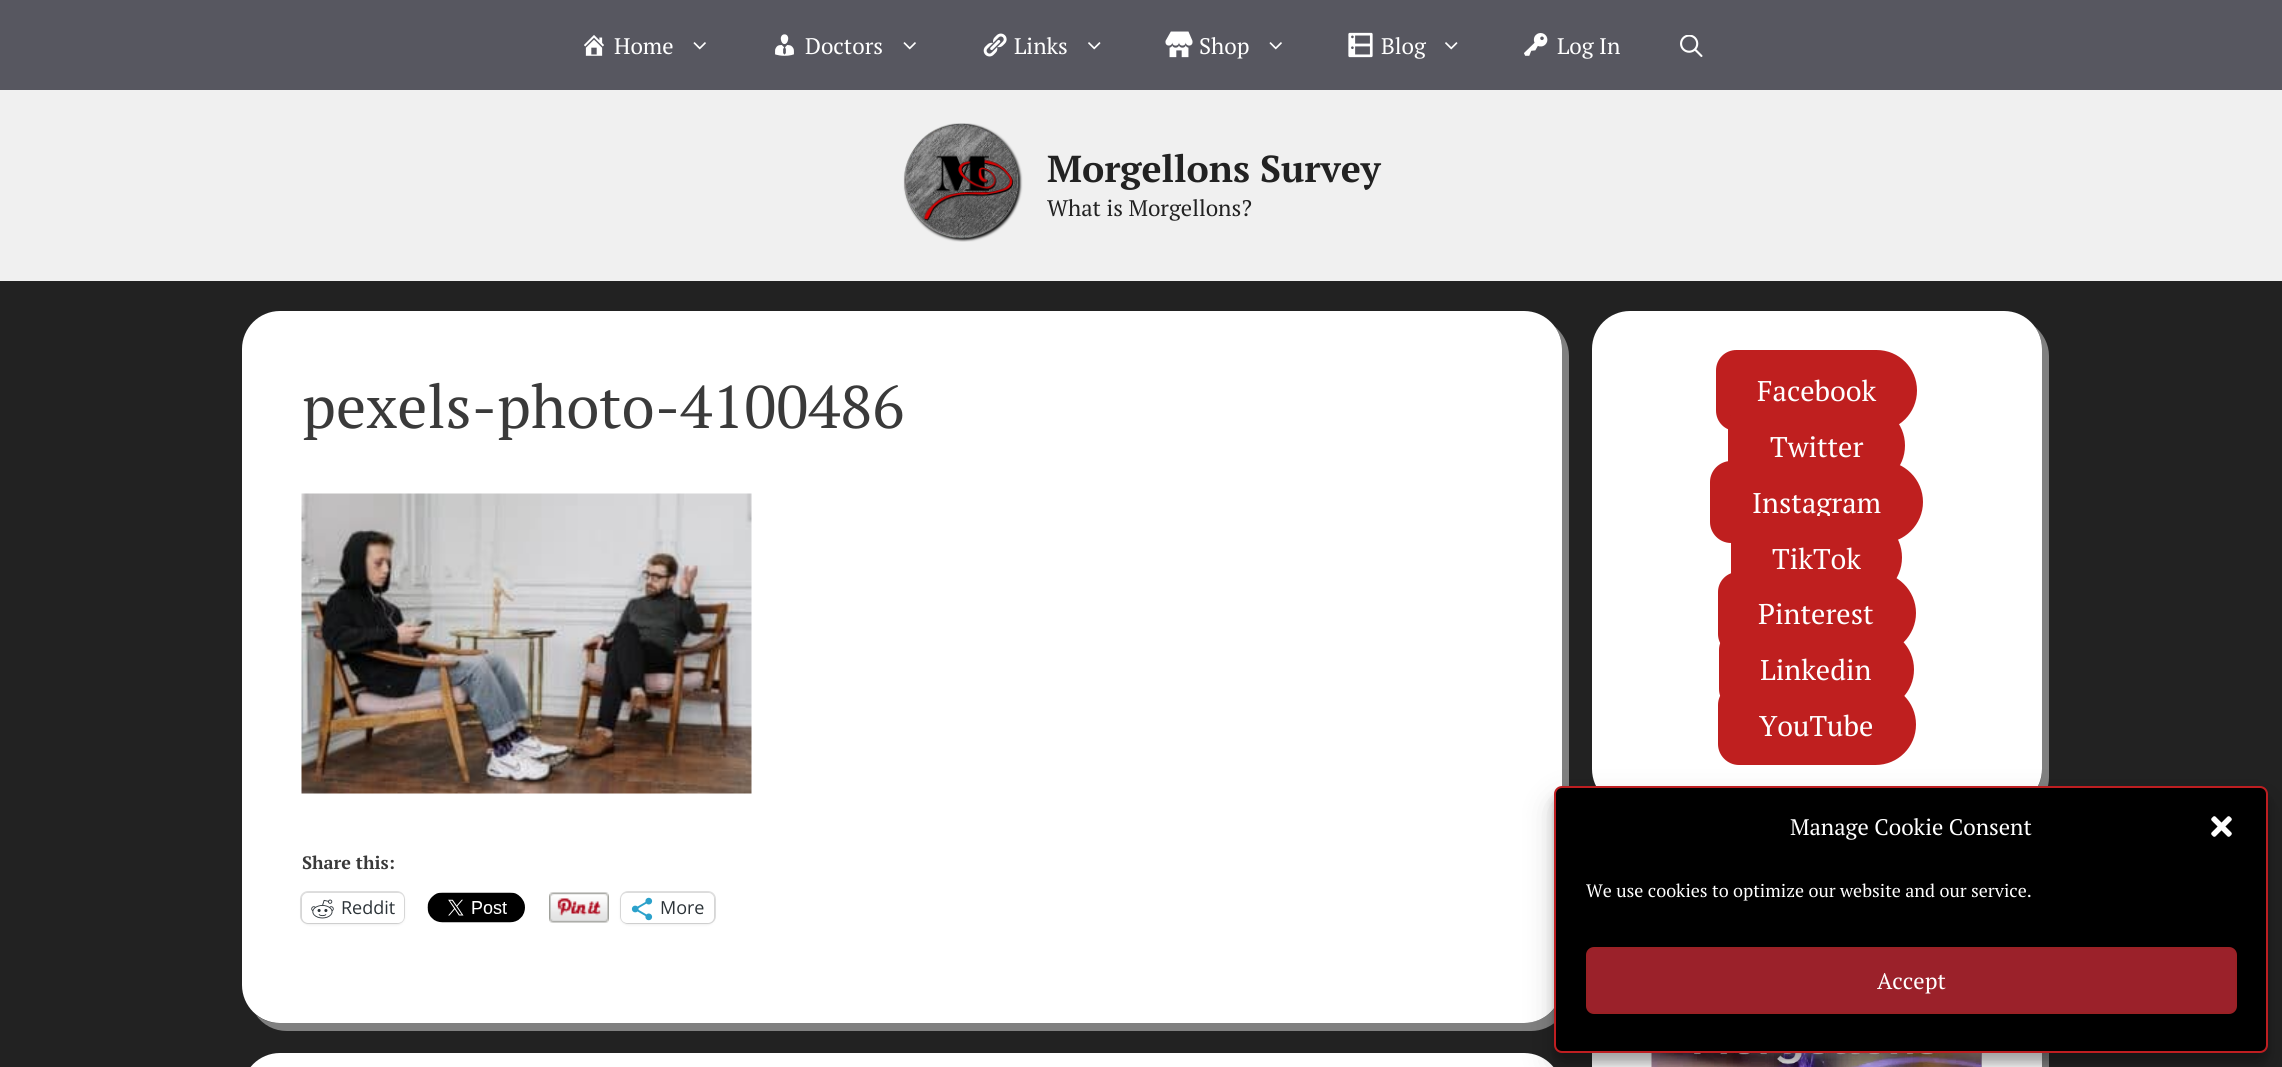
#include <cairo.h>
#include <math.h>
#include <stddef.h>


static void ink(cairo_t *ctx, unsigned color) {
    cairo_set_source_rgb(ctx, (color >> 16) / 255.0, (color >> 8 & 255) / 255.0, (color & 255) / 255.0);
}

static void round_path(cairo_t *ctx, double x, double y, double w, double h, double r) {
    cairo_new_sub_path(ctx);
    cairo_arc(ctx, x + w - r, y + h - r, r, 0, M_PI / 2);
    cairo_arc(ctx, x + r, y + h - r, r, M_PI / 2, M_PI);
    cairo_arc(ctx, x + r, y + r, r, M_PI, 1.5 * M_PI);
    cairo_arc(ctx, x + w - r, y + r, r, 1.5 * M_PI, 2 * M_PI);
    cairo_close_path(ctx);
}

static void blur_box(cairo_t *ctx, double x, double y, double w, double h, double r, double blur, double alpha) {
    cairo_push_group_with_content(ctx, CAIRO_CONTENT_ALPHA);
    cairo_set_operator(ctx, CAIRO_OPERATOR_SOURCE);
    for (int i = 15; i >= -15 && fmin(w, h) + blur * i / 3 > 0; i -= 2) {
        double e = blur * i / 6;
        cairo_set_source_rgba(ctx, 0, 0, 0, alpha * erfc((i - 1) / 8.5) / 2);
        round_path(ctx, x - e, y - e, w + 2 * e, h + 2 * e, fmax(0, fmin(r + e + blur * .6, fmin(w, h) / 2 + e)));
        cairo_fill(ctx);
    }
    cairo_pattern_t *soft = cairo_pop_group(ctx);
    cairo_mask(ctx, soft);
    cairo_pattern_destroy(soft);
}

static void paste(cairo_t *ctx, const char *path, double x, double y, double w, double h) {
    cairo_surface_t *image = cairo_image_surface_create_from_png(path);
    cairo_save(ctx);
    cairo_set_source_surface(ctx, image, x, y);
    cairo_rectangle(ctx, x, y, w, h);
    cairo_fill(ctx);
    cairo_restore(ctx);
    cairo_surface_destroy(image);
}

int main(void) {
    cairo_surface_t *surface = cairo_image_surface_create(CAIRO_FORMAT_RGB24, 2282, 1067);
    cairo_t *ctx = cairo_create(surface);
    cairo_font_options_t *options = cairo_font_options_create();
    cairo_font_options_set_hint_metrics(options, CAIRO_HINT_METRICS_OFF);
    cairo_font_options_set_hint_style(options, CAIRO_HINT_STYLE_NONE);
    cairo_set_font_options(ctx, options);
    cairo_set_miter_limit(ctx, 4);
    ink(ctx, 0x222222);
    cairo_paint(ctx);
    ink(ctx, 0x575760);
    cairo_rectangle(ctx, 0, 0, 2282, 90);
    cairo_fill(ctx);
    paste(ctx, "media/1.png", 584, 35, 20, 21);
    cairo_select_font_face(ctx, "PT Serif", CAIRO_FONT_SLANT_NORMAL, CAIRO_FONT_WEIGHT_NORMAL);
    cairo_set_font_size(ctx, 22.5);
    ink(ctx, 0xFFFFFF);
    cairo_move_to(ctx, 614, 54);
    cairo_show_text(ctx, "Home");
    paste(ctx, "media/2.png", 693, 42, 13, 8);
    paste(ctx, "media/3.png", 775, 34, 19, 22);
    cairo_move_to(ctx, 805, 54);
    cairo_show_text(ctx, "Doctors");
    paste(ctx, "media/2.png", 903, 42, 13, 8);
    paste(ctx, "media/4.png", 983, 33, 24, 24);
    cairo_move_to(ctx, 1014, 54);
    cairo_show_text(ctx, "Links");
    paste(ctx, "media/5.png", 1088, 42, 13, 8);
    paste(ctx, "media/6.png", 1165, 31, 28, 27);
    cairo_move_to(ctx, 1199, 54);
    cairo_show_text(ctx, "Shop");
    paste(ctx, "media/2.png", 1269, 42, 13, 8);
    paste(ctx, "media/7.png", 1348, 32, 25, 26);
    cairo_move_to(ctx, 1381, 54);
    cairo_show_text(ctx, "Blog");
    paste(ctx, "media/5.png", 1445, 42, 13, 8);
    paste(ctx, "media/8.png", 1524, 33, 24, 23);
    cairo_move_to(ctx, 1557, 54);
    cairo_show_text(ctx, "Log In");
    paste(ctx, "media/9.png", 1680, 35, 23, 22);
    ink(ctx, 0xF0F0F0);
    cairo_rectangle(ctx, 0, 90, 2282, 191);
    cairo_fill(ctx);
    paste(ctx, "media/10.png", 903, 123, 120, 119);
    cairo_select_font_face(ctx, "PT Serif", CAIRO_FONT_SLANT_NORMAL, CAIRO_FONT_WEIGHT_BOLD);
    cairo_set_font_size(ctx, 37.5);
    ink(ctx, 0x222222);
    cairo_move_to(ctx, 1047, 182);
    cairo_show_text(ctx, "Morgellons Survey");
    cairo_select_font_face(ctx, "PT Serif", CAIRO_FONT_SLANT_NORMAL, CAIRO_FONT_WEIGHT_NORMAL);
    cairo_set_font_size(ctx, 22.5);
    cairo_move_to(ctx, 1047, 216);
    cairo_show_text(ctx, "What is Morgellons?");
    ink(ctx, 0x808080);
    cairo_new_path(ctx);
    cairo_move_to(ctx, 256, 1015);
    cairo_curve_to(ctx, 263, 1025, 274, 1031, 287, 1031);
    cairo_line_to(ctx, 1531, 1031);
    cairo_curve_to(ctx, 1552, 1031, 1569, 1014, 1569, 993);
    cairo_line_to(ctx, 1569, 356);
    cairo_curve_to(ctx, 1569, 344, 1563, 333, 1554, 326);
    cairo_curve_to(ctx, 1559, 332, 1562, 340, 1562, 348);
    cairo_line_to(ctx, 1562, 986);
    cairo_curve_to(ctx, 1562, 1006, 1545, 1023, 1524, 1023);
    cairo_line_to(ctx, 279, 1023);
    cairo_curve_to(ctx, 270, 1023, 263, 1020, 256, 1015);
    cairo_close_path(ctx);
    cairo_fill(ctx);
    ink(ctx, 0xFFFFFF);
    round_path(ctx, 242, 311, 1320, 712, 38);
    cairo_fill(ctx);
    cairo_set_font_size(ctx, 60);
    ink(ctx, 0x3A3A3A);
    cairo_move_to(ctx, 302, 428);
    cairo_show_text(ctx, "pexels-photo-4100486");
    paste(ctx, "media/11.png", 301, 493, 451, 301);
    cairo_select_font_face(ctx, "PT Serif", CAIRO_FONT_SLANT_NORMAL, CAIRO_FONT_WEIGHT_BOLD);
    cairo_set_font_size(ctx, 18);
    cairo_move_to(ctx, 302, 869);
    cairo_show_text(ctx, "Share this:");
    round_path(ctx, 301, 892, 103, 31, 7);
    ink(ctx, 0xE0E0E0);
    cairo_stroke(ctx);
    ink(ctx, 0x000000);
    blur_box(ctx, 302, 894, 102, 30, 6, 1.5, 0.12);
    ink(ctx, 0xFFFFFF);
    round_path(ctx, 302, 893, 102, 30, 6);
    cairo_fill(ctx);
    paste(ctx, "media/12.png", 311, 899, 23, 20);
    cairo_select_font_face(ctx, "Open Sans", CAIRO_FONT_SLANT_NORMAL, CAIRO_FONT_WEIGHT_NORMAL);
    ink(ctx, 0x2C3338);
    cairo_move_to(ctx, 341, 914);
    cairo_show_text(ctx, "Reddit");
    paste(ctx, "media/13.png", 427, 892, 98, 31);
    paste(ctx, "media/14.png", 549, 892, 60, 31);
    round_path(ctx, 621, 892, 94, 31, 7);
    ink(ctx, 0xE0E0E0);
    cairo_stroke(ctx);
    ink(ctx, 0x000000);
    blur_box(ctx, 621, 894, 93, 30, 6, 1.5, 0.12);
    ink(ctx, 0xFFFFFF);
    round_path(ctx, 621, 893, 93, 30, 6);
    cairo_fill(ctx);
    paste(ctx, "media/15.png", 631, 897, 22, 24);
    ink(ctx, 0x2C3338);
    cairo_move_to(ctx, 660, 914);
    cairo_show_text(ctx, "More");
    ink(ctx, 0xFFFFFF);
    round_path(ctx, 242, 1053, 1320, 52, 38);
    cairo_fill(ctx);
    ink(ctx, 0x808080);
    cairo_new_path(ctx);
    cairo_move_to(ctx, 1606, 799);
    cairo_curve_to(ctx, 1613, 809, 1624, 815, 1637, 815);
    cairo_line_to(ctx, 2011, 815);
    cairo_curve_to(ctx, 2032, 815, 2049, 798, 2049, 777);
    cairo_line_to(ctx, 2049, 356);
    cairo_curve_to(ctx, 2049, 344, 2043, 333, 2034, 326);
    cairo_curve_to(ctx, 2039, 332, 2042, 340, 2042, 348);
    cairo_line_to(ctx, 2042, 770);
    cairo_curve_to(ctx, 2042, 790, 2025, 807, 2004, 807);
    cairo_line_to(ctx, 1629, 807);
    cairo_curve_to(ctx, 1620, 807, 1613, 804, 1606, 799);
    cairo_close_path(ctx);
    cairo_fill(ctx);
    ink(ctx, 0xFFFFFF);
    round_path(ctx, 1592, 311, 450, 496, 38);
    cairo_fill(ctx);
    ink(ctx, 0xBF1F1F);
    cairo_new_path(ctx);
    cairo_move_to(ctx, 1757, 350);
    cairo_line_to(ctx, 1876.5, 350);
    cairo_curve_to(ctx, 1899, 350, 1917, 368, 1917, 390.5);
    cairo_curve_to(ctx, 1917, 413, 1899, 431, 1876.5, 431);
    cairo_line_to(ctx, 1757, 431);
    cairo_close_path(ctx);
    cairo_fill(ctx);
    cairo_select_font_face(ctx, "PT Serif", CAIRO_FONT_SLANT_NORMAL, CAIRO_FONT_WEIGHT_NORMAL);
    cairo_set_font_size(ctx, 28.5);
    ink(ctx, 0xFFFFFF);
    cairo_move_to(ctx, 1757, 401);
    cairo_show_text(ctx, "Facebook");
    ink(ctx, 0xBF1F1F);
    cairo_new_path(ctx);
    cairo_move_to(ctx, 1736.5, 350);
    cairo_line_to(ctx, 1757, 350);
    cairo_line_to(ctx, 1757, 431);
    cairo_line_to(ctx, 1736.5, 431);
    cairo_curve_to(ctx, 1725, 431, 1716, 422, 1716, 410.5);
    cairo_line_to(ctx, 1716, 370.5);
    cairo_curve_to(ctx, 1716, 359, 1725, 350, 1736.5, 350);
    cairo_close_path(ctx);
    cairo_fill(ctx);
    cairo_new_path(ctx);
    cairo_move_to(ctx, 1770, 405);
    cairo_line_to(ctx, 1864.5, 405);
    cairo_curve_to(ctx, 1887, 405, 1905, 423, 1905, 445.5);
    cairo_curve_to(ctx, 1905, 468, 1887, 486, 1864.5, 486);
    cairo_line_to(ctx, 1770, 486);
    cairo_close_path(ctx);
    cairo_fill(ctx);
    ink(ctx, 0xFFFFFF);
    cairo_move_to(ctx, 1770, 457);
    cairo_show_text(ctx, "Twitter");
    ink(ctx, 0xBF1F1F);
    cairo_new_path(ctx);
    cairo_move_to(ctx, 1749, 405);
    cairo_line_to(ctx, 1770, 405);
    cairo_line_to(ctx, 1770, 486);
    cairo_line_to(ctx, 1749, 486);
    cairo_curve_to(ctx, 1737.5, 486, 1728, 476.5, 1728, 465);
    cairo_line_to(ctx, 1728, 426);
    cairo_curve_to(ctx, 1728, 414.5, 1737.5, 405, 1749, 405);
    cairo_close_path(ctx);
    cairo_fill(ctx);
    cairo_new_path(ctx);
    cairo_move_to(ctx, 1752, 461);
    cairo_line_to(ctx, 1882, 461);
    cairo_curve_to(ctx, 1904.5, 461, 1923, 479.5, 1923, 502);
    cairo_curve_to(ctx, 1923, 524.5, 1904.5, 543, 1882, 543);
    cairo_line_to(ctx, 1752, 543);
    cairo_close_path(ctx);
    cairo_fill(ctx);
    ink(ctx, 0xFFFFFF);
    cairo_move_to(ctx, 1752, 513);
    cairo_show_text(ctx, "Instagram");
    ink(ctx, 0xBF1F1F);
    cairo_new_path(ctx);
    cairo_move_to(ctx, 1731, 461);
    cairo_line_to(ctx, 1752, 461);
    cairo_line_to(ctx, 1752, 543);
    cairo_line_to(ctx, 1731, 543);
    cairo_curve_to(ctx, 1719.5, 543, 1710, 533.5, 1710, 522);
    cairo_line_to(ctx, 1710, 482);
    cairo_curve_to(ctx, 1710, 470.5, 1719.5, 461, 1731, 461);
    cairo_close_path(ctx);
    cairo_fill(ctx);
    cairo_new_path(ctx);
    cairo_move_to(ctx, 1772, 516);
    cairo_line_to(ctx, 1860.5, 516);
    cairo_curve_to(ctx, 1883.5, 516, 1902, 534.5, 1902, 557.5);
    cairo_curve_to(ctx, 1902, 580.5, 1883.5, 599, 1860.5, 599);
    cairo_line_to(ctx, 1772, 599);
    cairo_close_path(ctx);
    cairo_fill(ctx);
    ink(ctx, 0xFFFFFF);
    cairo_move_to(ctx, 1772, 569);
    cairo_show_text(ctx, "TikTok");
    ink(ctx, 0xBF1F1F);
    cairo_new_path(ctx);
    cairo_move_to(ctx, 1751.5, 516);
    cairo_line_to(ctx, 1772, 516);
    cairo_line_to(ctx, 1772, 599);
    cairo_line_to(ctx, 1751.5, 599);
    cairo_curve_to(ctx, 1740, 599, 1731, 590, 1731, 578.5);
    cairo_line_to(ctx, 1731, 536.5);
    cairo_curve_to(ctx, 1731, 525, 1740, 516, 1751.5, 516);
    cairo_close_path(ctx);
    cairo_fill(ctx);
    cairo_new_path(ctx);
    cairo_move_to(ctx, 1758, 572);
    cairo_line_to(ctx, 1875, 572);
    cairo_curve_to(ctx, 1897.5, 572, 1916, 590.5, 1916, 613);
    cairo_curve_to(ctx, 1916, 635.5, 1897.5, 654, 1875, 654);
    cairo_line_to(ctx, 1758, 654);
    cairo_close_path(ctx);
    cairo_fill(ctx);
    ink(ctx, 0xFFFFFF);
    cairo_move_to(ctx, 1758, 624);
    cairo_show_text(ctx, "Pinterest");
    ink(ctx, 0xBF1F1F);
    cairo_new_path(ctx);
    cairo_move_to(ctx, 1738, 572);
    cairo_line_to(ctx, 1758, 572);
    cairo_line_to(ctx, 1758, 654);
    cairo_line_to(ctx, 1738, 654);
    cairo_curve_to(ctx, 1727, 654, 1718, 645, 1718, 634);
    cairo_line_to(ctx, 1718, 592);
    cairo_curve_to(ctx, 1718, 581, 1727, 572, 1738, 572);
    cairo_close_path(ctx);
    cairo_fill(ctx);
    cairo_new_path(ctx);
    cairo_move_to(ctx, 1761, 629);
    cairo_line_to(ctx, 1873.5, 629);
    cairo_curve_to(ctx, 1896, 629, 1914, 647, 1914, 669.5);
    cairo_curve_to(ctx, 1914, 692, 1896, 710, 1873.5, 710);
    cairo_line_to(ctx, 1761, 710);
    cairo_close_path(ctx);
    cairo_fill(ctx);
    ink(ctx, 0xFFFFFF);
    cairo_move_to(ctx, 1760, 680);
    cairo_show_text(ctx, "Linkedin");
    ink(ctx, 0xBF1F1F);
    cairo_new_path(ctx);
    cairo_move_to(ctx, 1740, 629);
    cairo_line_to(ctx, 1761, 629);
    cairo_line_to(ctx, 1761, 710);
    cairo_line_to(ctx, 1740, 710);
    cairo_curve_to(ctx, 1728.5, 710, 1719, 700.5, 1719, 689);
    cairo_line_to(ctx, 1719, 650);
    cairo_curve_to(ctx, 1719, 638.5, 1728.5, 629, 1740, 629);
    cairo_close_path(ctx);
    cairo_fill(ctx);
    cairo_new_path(ctx);
    cairo_move_to(ctx, 1739, 684);
    cairo_line_to(ctx, 1760, 684);
    cairo_line_to(ctx, 1760, 765);
    cairo_line_to(ctx, 1739, 765);
    cairo_curve_to(ctx, 1727.5, 765, 1718, 755.5, 1718, 744);
    cairo_line_to(ctx, 1718, 705);
    cairo_curve_to(ctx, 1718, 693.5, 1727.5, 684, 1739, 684);
    cairo_close_path(ctx);
    cairo_fill(ctx);
    cairo_new_path(ctx);
    cairo_move_to(ctx, 1760, 684);
    cairo_line_to(ctx, 1875.5, 684);
    cairo_curve_to(ctx, 1898, 684, 1916, 702, 1916, 724.5);
    cairo_curve_to(ctx, 1916, 747, 1898, 765, 1875.5, 765);
    cairo_line_to(ctx, 1760, 765);
    cairo_close_path(ctx);
    cairo_fill(ctx);
    ink(ctx, 0xFFFFFF);
    cairo_move_to(ctx, 1759, 736);
    cairo_show_text(ctx, "YouTube");
    ink(ctx, 0x808080);
    cairo_new_path(ctx);
    cairo_move_to(ctx, 1606, 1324);
    cairo_curve_to(ctx, 1613, 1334, 1624, 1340, 1637, 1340);
    cairo_line_to(ctx, 2011, 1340);
    cairo_curve_to(ctx, 2032, 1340, 2049, 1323, 2049, 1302);
    cairo_line_to(ctx, 2049, 883);
    cairo_curve_to(ctx, 2049, 871, 2044, 861, 2035, 854);
    cairo_curve_to(ctx, 2039, 860, 2042, 867, 2042, 874);
    cairo_line_to(ctx, 2042, 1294);
    cairo_curve_to(ctx, 2042, 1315, 2025, 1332, 2004, 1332);
    cairo_line_to(ctx, 1629, 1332);
    cairo_curve_to(ctx, 1620, 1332, 1613, 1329, 1606, 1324);
    cairo_close_path(ctx);
    cairo_fill(ctx);
    ink(ctx, 0xFFFFFF);
    cairo_rectangle(ctx, 1592, 1053, 450, 14);
    cairo_fill(ctx);
    paste(ctx, "media/16.png", 1651, 1053, 331, 14);
    ink(ctx, 0x000000);
    blur_box(ctx, 1554, 795, 714, 267, 8, 4.5, 0.23);
    blur_box(ctx, 1554, 801, 714, 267, 8, 15, 0.19);
    ink(ctx, 0x000000);
    round_path(ctx, 1555, 787, 712, 265, 7);
    cairo_fill_preserve(ctx);
    ink(ctx, 0xBE1E21);
    cairo_stroke(ctx);
    cairo_set_font_size(ctx, 22.5);
    ink(ctx, 0xFFFFFF);
    cairo_move_to(ctx, 1790, 835);
    cairo_show_text(ctx, "Manage Cookie Consent");
    paste(ctx, "media/17.png", 2211, 816, 21, 21);
    cairo_set_font_size(ctx, 18);
    cairo_move_to(ctx, 1586, 897);
    cairo_show_text(ctx, "We use cookies to optimize our website and our service.");
    ink(ctx, 0x9B212A);
    round_path(ctx, 1587, 948, 649, 65, 7);
    cairo_fill_preserve(ctx);
    ink(ctx, 0x9B2125);
    cairo_stroke(ctx);
    cairo_set_font_size(ctx, 22.5);
    ink(ctx, 0xFFFFFF);
    cairo_move_to(ctx, 1877, 989);
    cairo_show_text(ctx, "Accept");
    cairo_surface_write_to_png(surface, "image.png");
    cairo_font_options_destroy(options);
    cairo_destroy(ctx);
    cairo_surface_destroy(surface);
    return 0;
}
